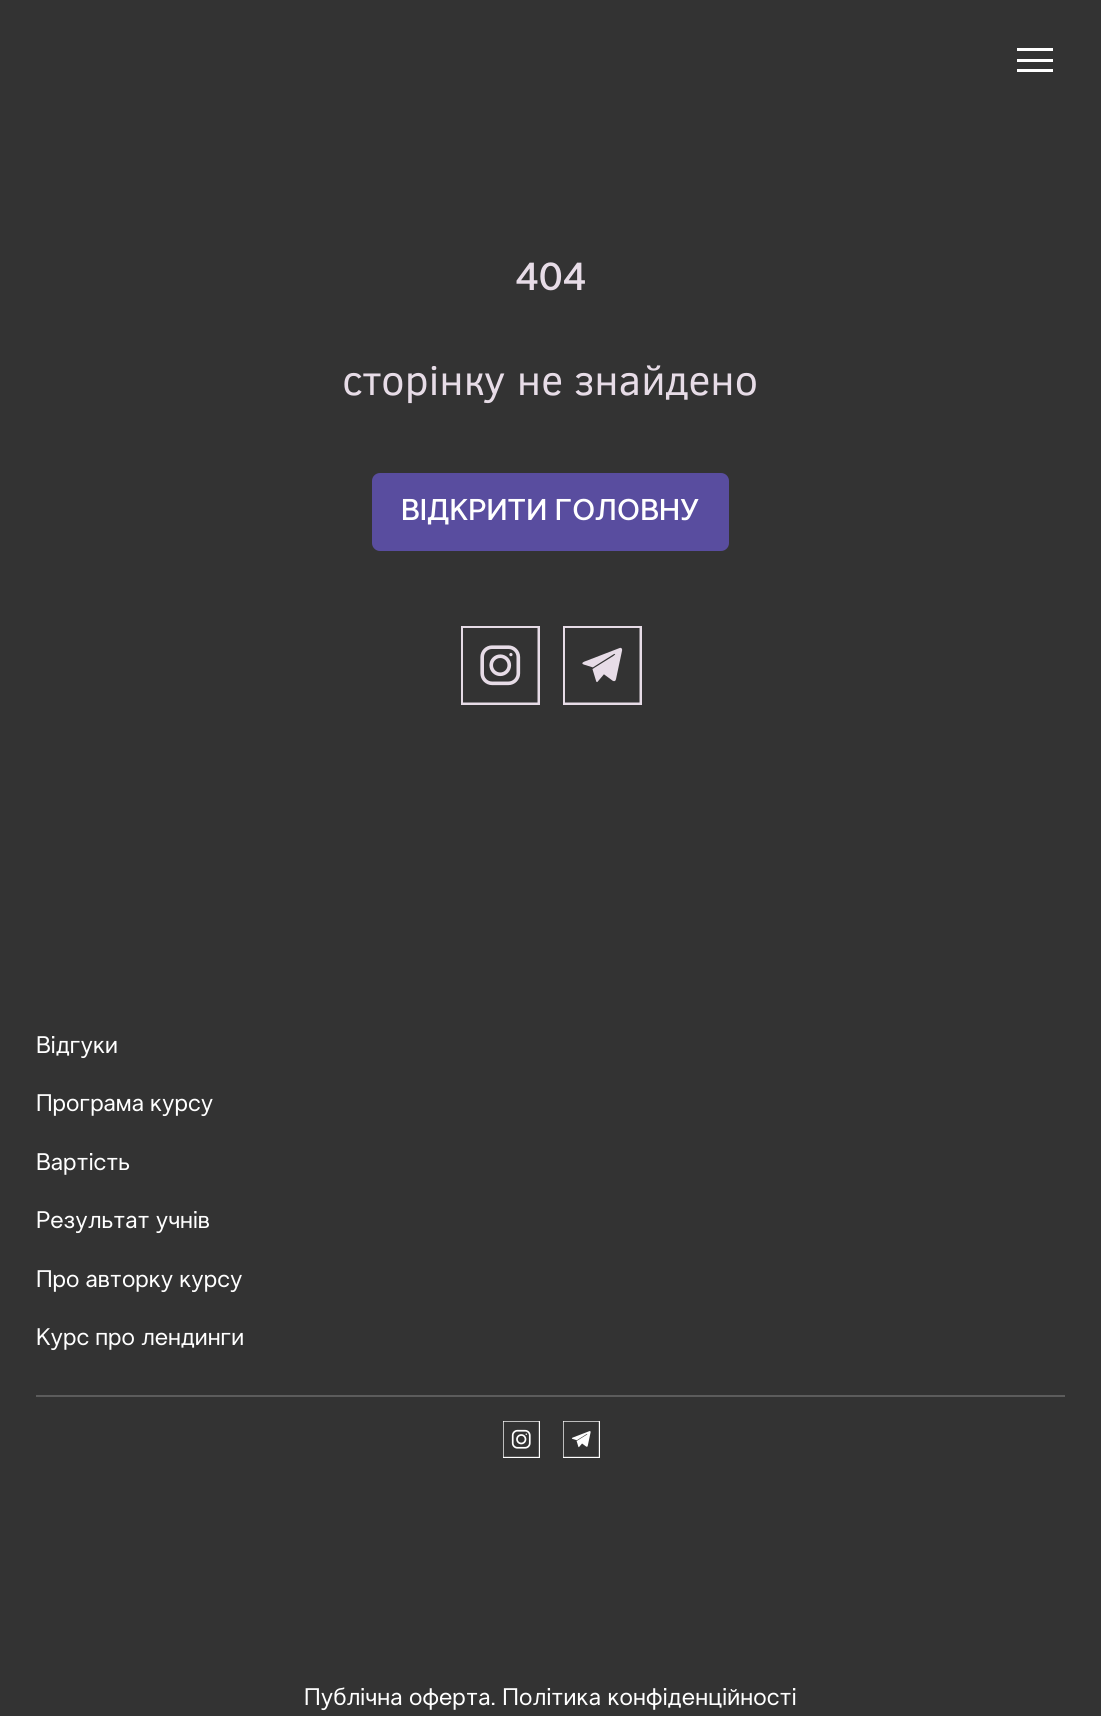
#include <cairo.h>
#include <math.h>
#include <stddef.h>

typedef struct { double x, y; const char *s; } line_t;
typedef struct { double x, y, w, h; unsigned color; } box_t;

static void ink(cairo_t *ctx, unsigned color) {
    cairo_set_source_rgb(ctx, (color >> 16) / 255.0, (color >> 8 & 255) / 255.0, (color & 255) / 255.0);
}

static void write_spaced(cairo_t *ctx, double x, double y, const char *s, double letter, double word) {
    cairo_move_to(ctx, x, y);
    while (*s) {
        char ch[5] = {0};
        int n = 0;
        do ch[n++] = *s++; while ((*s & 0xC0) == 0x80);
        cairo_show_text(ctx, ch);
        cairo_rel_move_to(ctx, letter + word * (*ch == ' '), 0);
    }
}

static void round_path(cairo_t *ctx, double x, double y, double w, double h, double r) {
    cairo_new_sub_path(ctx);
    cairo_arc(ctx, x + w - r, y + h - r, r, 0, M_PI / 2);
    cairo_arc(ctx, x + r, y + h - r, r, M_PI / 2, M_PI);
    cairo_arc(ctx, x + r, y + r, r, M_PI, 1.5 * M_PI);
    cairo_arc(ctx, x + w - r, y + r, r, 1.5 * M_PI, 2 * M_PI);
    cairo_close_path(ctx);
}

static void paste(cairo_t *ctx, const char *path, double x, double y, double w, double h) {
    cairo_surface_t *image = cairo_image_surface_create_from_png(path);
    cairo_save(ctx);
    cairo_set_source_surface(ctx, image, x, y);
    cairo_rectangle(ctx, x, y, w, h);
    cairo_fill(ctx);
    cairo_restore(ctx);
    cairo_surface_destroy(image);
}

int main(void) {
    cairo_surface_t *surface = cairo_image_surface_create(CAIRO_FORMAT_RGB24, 1101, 1716);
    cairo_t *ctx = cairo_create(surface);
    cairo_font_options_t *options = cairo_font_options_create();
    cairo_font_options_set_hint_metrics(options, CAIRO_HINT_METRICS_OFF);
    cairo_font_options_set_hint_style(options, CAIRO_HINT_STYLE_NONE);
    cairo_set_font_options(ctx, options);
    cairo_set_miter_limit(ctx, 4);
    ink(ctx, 0x333333);
    cairo_paint(ctx);
    {
        static const box_t items[] = {
            {1017, 48, 36, 3, 0xFFFFFF},
            {1017, 59, 36, 3, 0xFFFFFF},
            {1017, 69, 36, 3, 0xFFFFFF},
        };
        for (size_t i = 0; i < sizeof items / sizeof *items; i++) {
            ink(ctx, items[i].color);
            cairo_rectangle(ctx, items[i].x, items[i].y, items[i].w, items[i].h);
            cairo_fill(ctx);
        }
    }
    cairo_select_font_face(ctx, "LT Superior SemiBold", CAIRO_FONT_SLANT_NORMAL, CAIRO_FONT_WEIGHT_NORMAL);
    cairo_set_font_size(ctx, 39);
    ink(ctx, 0xE7DCE7);
    cairo_move_to(ctx, 515, 290);
    cairo_show_text(ctx, "404");
    cairo_select_font_face(ctx, "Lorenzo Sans", CAIRO_FONT_SLANT_NORMAL, CAIRO_FONT_WEIGHT_NORMAL);
    cairo_set_font_size(ctx, 42);
    cairo_move_to(ctx, 342, 395);
    cairo_show_text(ctx, "сторінку не знайдено");
    ink(ctx, 0x594D9F);
    round_path(ctx, 372, 473, 357, 78, 8);
    cairo_fill(ctx);
    cairo_select_font_face(ctx, "LT Superior SemiBold", CAIRO_FONT_SLANT_NORMAL, CAIRO_FONT_WEIGHT_NORMAL);
    cairo_set_font_size(ctx, 30);
    ink(ctx, 0xFFFFFF);
    cairo_move_to(ctx, 401, 520);
    cairo_show_text(ctx, "ВІДКРИТИ ГОЛОВНУ");
    paste(ctx, "media/1.png", 461, 626, 79, 79);
    paste(ctx, "media/2.png", 563, 626, 79, 79);
    cairo_select_font_face(ctx, "LT Superior Medium", CAIRO_FONT_SLANT_NORMAL, CAIRO_FONT_WEIGHT_NORMAL);
    cairo_set_font_size(ctx, 24);
    {
        static const line_t items[] = {
            {36, 1053, "Відгуки"},
            {36, 1111, "Програма курсу"},
            {36, 1170, "Вартість"},
            {36, 1228, "Результат учнів"},
            {36, 1287, "Про авторку курсу"},
            {36, 1345, "Курс про лендинги"},
        };
        for (size_t i = 0; i < sizeof items / sizeof *items; i++) {
            cairo_move_to(ctx, items[i].x, items[i].y);
            cairo_show_text(ctx, items[i].s);
        }
    }
    ink(ctx, 0x5C5C5C);
    cairo_rectangle(ctx, 36, 1395, 1029, 2);
    cairo_fill(ctx);
    paste(ctx, "media/3.png", 503, 1421, 37, 37);
    paste(ctx, "media/4.png", 563, 1421, 37, 37);
    ink(ctx, 0xFFFFFF);
    write_spaced(ctx, 304, 1705, "Публічна оферта. Політика конфіденційності", 0.15, 0);
    cairo_surface_write_to_png(surface, "image.png");
    cairo_font_options_destroy(options);
    cairo_destroy(ctx);
    cairo_surface_destroy(surface);
    return 0;
}
